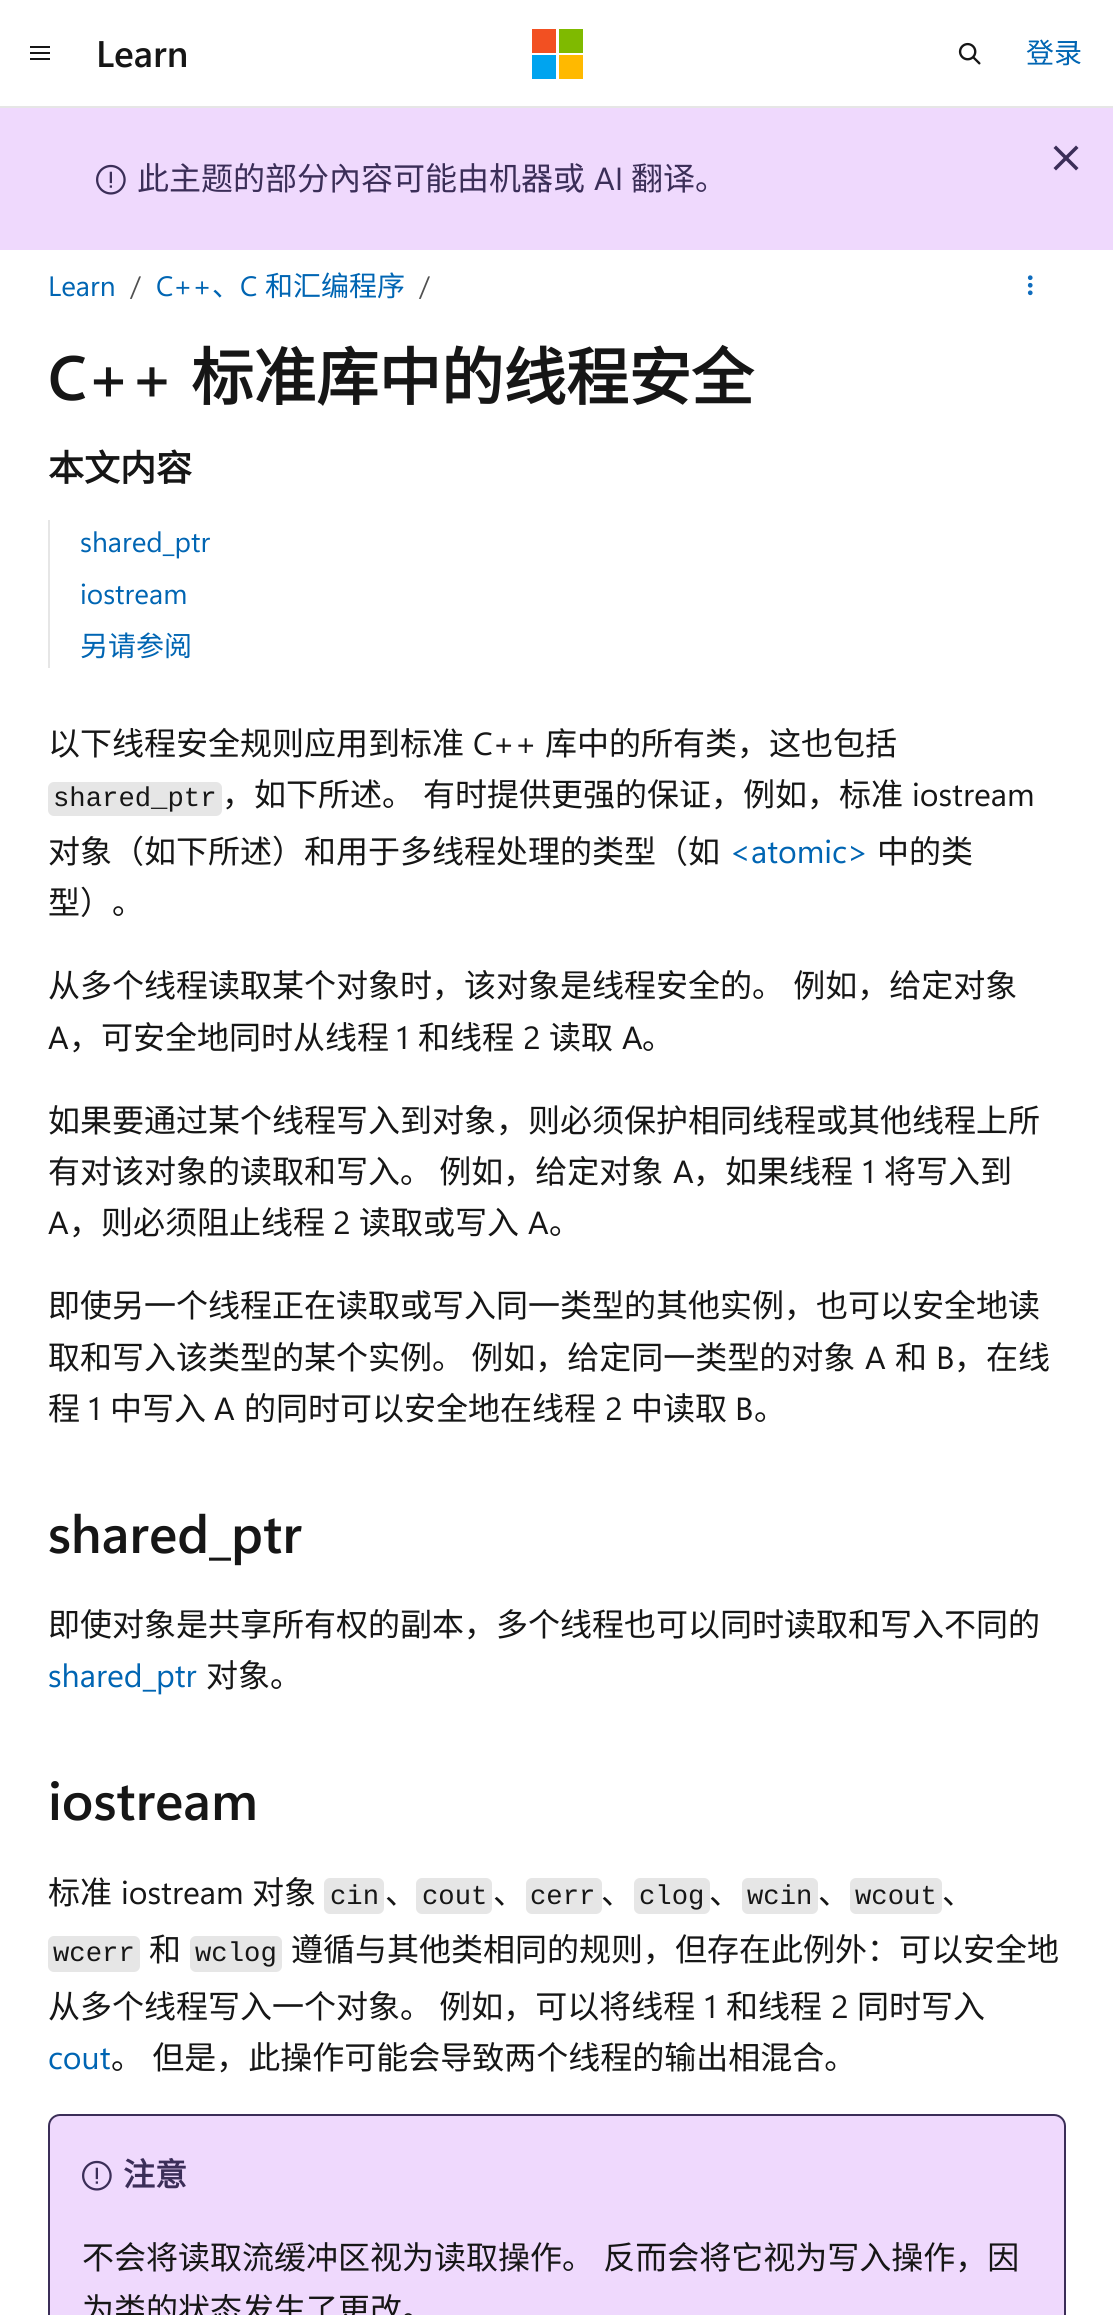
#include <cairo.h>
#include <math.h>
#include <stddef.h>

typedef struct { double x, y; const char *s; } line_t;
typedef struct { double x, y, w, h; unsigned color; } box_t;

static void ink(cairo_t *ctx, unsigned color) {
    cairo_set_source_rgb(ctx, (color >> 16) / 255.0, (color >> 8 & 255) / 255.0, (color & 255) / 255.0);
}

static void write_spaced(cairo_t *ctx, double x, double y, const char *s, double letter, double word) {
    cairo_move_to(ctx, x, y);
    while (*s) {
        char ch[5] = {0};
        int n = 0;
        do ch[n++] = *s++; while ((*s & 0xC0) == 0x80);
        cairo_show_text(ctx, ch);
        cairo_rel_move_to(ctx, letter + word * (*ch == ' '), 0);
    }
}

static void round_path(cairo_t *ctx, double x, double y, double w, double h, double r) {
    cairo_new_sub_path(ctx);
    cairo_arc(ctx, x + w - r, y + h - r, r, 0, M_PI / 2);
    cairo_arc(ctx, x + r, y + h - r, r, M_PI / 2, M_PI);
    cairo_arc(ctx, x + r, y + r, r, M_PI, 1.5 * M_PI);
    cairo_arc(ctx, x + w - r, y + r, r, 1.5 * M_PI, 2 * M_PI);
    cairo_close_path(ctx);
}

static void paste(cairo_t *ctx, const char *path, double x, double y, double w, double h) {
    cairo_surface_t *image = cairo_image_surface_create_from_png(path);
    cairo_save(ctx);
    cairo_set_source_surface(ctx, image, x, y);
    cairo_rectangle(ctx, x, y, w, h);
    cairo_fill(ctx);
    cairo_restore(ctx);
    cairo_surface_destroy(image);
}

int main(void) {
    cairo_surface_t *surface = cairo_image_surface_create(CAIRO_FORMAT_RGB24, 1113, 2315);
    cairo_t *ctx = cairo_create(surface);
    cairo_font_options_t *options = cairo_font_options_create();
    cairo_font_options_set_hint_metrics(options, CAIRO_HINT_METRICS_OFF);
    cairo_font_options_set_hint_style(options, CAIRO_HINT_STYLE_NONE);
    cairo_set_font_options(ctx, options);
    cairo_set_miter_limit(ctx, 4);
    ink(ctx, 0xFFFFFF);
    cairo_paint(ctx);
    ink(ctx, 0xE6E6E6);
    cairo_rectangle(ctx, 0, 106, 1113, 2);
    cairo_fill(ctx);
    paste(ctx, "media/1.png", 30, 46, 20, 14);
    cairo_select_font_face(ctx, "Segoe UI SemiBold", CAIRO_FONT_SLANT_NORMAL, CAIRO_FONT_WEIGHT_NORMAL);
    cairo_set_font_size(ctx, 37);
    ink(ctx, 0x161616);
    cairo_move_to(ctx, 96, 67);
    cairo_show_text(ctx, "Learn");
    {
        static const box_t items[] = {
            {532, 29, 24, 24, 0xF25022},
            {559, 29, 24, 24, 0x7FBA00},
            {532, 55, 24, 24, 0x00A4EF},
            {559, 55, 24, 24, 0xFFB900},
        };
        for (size_t i = 0; i < sizeof items / sizeof *items; i++) {
            ink(ctx, items[i].color);
            cairo_rectangle(ctx, items[i].x, items[i].y, items[i].w, items[i].h);
            cairo_fill(ctx);
        }
    }
    paste(ctx, "media/2.png", 958, 42, 23, 23);
    cairo_select_font_face(ctx, "Noto Sans CJK SC", CAIRO_FONT_SLANT_NORMAL, CAIRO_FONT_WEIGHT_NORMAL);
    cairo_set_font_size(ctx, 28);
    ink(ctx, 0x0065B3);
    cairo_move_to(ctx, 1026, 63);
    cairo_show_text(ctx, "登录");
    ink(ctx, 0xEFD9FD);
    cairo_rectangle(ctx, 0, 108, 1113, 142);
    cairo_fill(ctx);
    ink(ctx, 0x3B2E58);
    cairo_new_path(ctx);
    cairo_move_to(ctx, 1056, 145.5);
    cairo_line_to(ctx, 1078.5, 168);
    cairo_line_to(ctx, 1076, 170.5);
    cairo_line_to(ctx, 1053.5, 148);
    cairo_close_path(ctx);
    cairo_fill(ctx);
    cairo_new_path(ctx);
    cairo_move_to(ctx, 1076, 145.5);
    cairo_line_to(ctx, 1078.5, 148);
    cairo_line_to(ctx, 1056, 170.5);
    cairo_line_to(ctx, 1053.5, 168);
    cairo_close_path(ctx);
    cairo_fill(ctx);
    paste(ctx, "media/3.png", 96, 164, 30, 31);
    cairo_set_font_size(ctx, 32);
    cairo_move_to(ctx, 137, 190);
    cairo_show_text(ctx, "此主题的部分內容可能由机器或");
    cairo_select_font_face(ctx, "Segoe UI", CAIRO_FONT_SLANT_NORMAL, CAIRO_FONT_WEIGHT_NORMAL);
    cairo_move_to(ctx, 594, 190);
    cairo_show_text(ctx, "AI");
    cairo_select_font_face(ctx, "Noto Sans CJK SC", CAIRO_FONT_SLANT_NORMAL, CAIRO_FONT_WEIGHT_NORMAL);
    cairo_move_to(ctx, 631, 190);
    cairo_show_text(ctx, "翻译。");
    cairo_select_font_face(ctx, "Segoe UI", CAIRO_FONT_SLANT_NORMAL, CAIRO_FONT_WEIGHT_NORMAL);
    cairo_set_font_size(ctx, 28);
    ink(ctx, 0x0065B3);
    cairo_move_to(ctx, 48, 296);
    cairo_show_text(ctx, "Learn");
    ink(ctx, 0x505050);
    cairo_move_to(ctx, 130, 296);
    cairo_show_text(ctx, "/");
    ink(ctx, 0x0065B3);
    cairo_move_to(ctx, 156, 296);
    cairo_show_text(ctx, "C++");
    cairo_select_font_face(ctx, "Noto Sans CJK SC", CAIRO_FONT_SLANT_NORMAL, CAIRO_FONT_WEIGHT_NORMAL);
    cairo_move_to(ctx, 212, 296);
    cairo_show_text(ctx, "、");
    cairo_select_font_face(ctx, "Segoe UI", CAIRO_FONT_SLANT_NORMAL, CAIRO_FONT_WEIGHT_NORMAL);
    cairo_move_to(ctx, 240, 296);
    cairo_show_text(ctx, "C");
    cairo_select_font_face(ctx, "Noto Sans CJK SC", CAIRO_FONT_SLANT_NORMAL, CAIRO_FONT_WEIGHT_NORMAL);
    cairo_move_to(ctx, 265, 296);
    cairo_show_text(ctx, "和汇编程序");
    cairo_select_font_face(ctx, "Segoe UI", CAIRO_FONT_SLANT_NORMAL, CAIRO_FONT_WEIGHT_NORMAL);
    ink(ctx, 0x505050);
    cairo_move_to(ctx, 419, 296);
    cairo_show_text(ctx, "/");
    paste(ctx, "media/4.png", 1027, 275, 6, 21);
    cairo_select_font_face(ctx, "Segoe UI SemiBold", CAIRO_FONT_SLANT_NORMAL, CAIRO_FONT_WEIGHT_NORMAL);
    cairo_set_font_size(ctx, 62.5);
    ink(ctx, 0x161616);
    cairo_move_to(ctx, 48, 400);
    cairo_show_text(ctx, "C++");
    cairo_select_font_face(ctx, "Noto Sans CJK SC", CAIRO_FONT_SLANT_NORMAL, CAIRO_FONT_WEIGHT_BOLD);
    cairo_move_to(ctx, 191, 400);
    cairo_show_text(ctx, "标准库中的线程安全");
    cairo_set_font_size(ctx, 36);
    cairo_move_to(ctx, 48, 481);
    cairo_show_text(ctx, "本文内容");
    ink(ctx, 0xE6E6E6);
    cairo_rectangle(ctx, 48, 520, 2, 148);
    cairo_fill(ctx);
    cairo_select_font_face(ctx, "Segoe UI", CAIRO_FONT_SLANT_NORMAL, CAIRO_FONT_WEIGHT_NORMAL);
    cairo_set_font_size(ctx, 28);
    ink(ctx, 0x0065B3);
    cairo_move_to(ctx, 80, 552);
    cairo_show_text(ctx, "shared_ptr");
    cairo_move_to(ctx, 80, 604);
    cairo_show_text(ctx, "iostream");
    cairo_select_font_face(ctx, "Noto Sans CJK SC", CAIRO_FONT_SLANT_NORMAL, CAIRO_FONT_WEIGHT_NORMAL);
    cairo_move_to(ctx, 80, 656);
    cairo_show_text(ctx, "另请参阅");
    cairo_set_font_size(ctx, 32);
    ink(ctx, 0x161616);
    cairo_move_to(ctx, 48, 755);
    cairo_show_text(ctx, "以下线程安全规则应用到标准");
    cairo_select_font_face(ctx, "Segoe UI", CAIRO_FONT_SLANT_NORMAL, CAIRO_FONT_WEIGHT_NORMAL);
    cairo_move_to(ctx, 473, 755);
    cairo_show_text(ctx, "C++");
    cairo_select_font_face(ctx, "Noto Sans CJK SC", CAIRO_FONT_SLANT_NORMAL, CAIRO_FONT_WEIGHT_NORMAL);
    cairo_move_to(ctx, 545, 755);
    cairo_show_text(ctx, "库中的所有类，这也包括");
    ink(ctx, 0xE6E6E6);
    round_path(ctx, 48, 782, 174, 34, 6);
    cairo_fill(ctx);
    cairo_select_font_face(ctx, "Liberation Mono", CAIRO_FONT_SLANT_NORMAL, CAIRO_FONT_WEIGHT_NORMAL);
    cairo_set_font_size(ctx, 27.25);
    ink(ctx, 0x161616);
    cairo_move_to(ctx, 53, 806);
    cairo_show_text(ctx, "shared_ptr");
    cairo_select_font_face(ctx, "Noto Sans CJK SC", CAIRO_FONT_SLANT_NORMAL, CAIRO_FONT_WEIGHT_NORMAL);
    cairo_set_font_size(ctx, 32);
    cairo_move_to(ctx, 222, 806);
    cairo_show_text(ctx, "，如下所述。");
    cairo_move_to(ctx, 423, 806);
    cairo_show_text(ctx, "有时提供更强的保证，例如，标准");
    cairo_select_font_face(ctx, "Segoe UI", CAIRO_FONT_SLANT_NORMAL, CAIRO_FONT_WEIGHT_NORMAL);
    cairo_move_to(ctx, 912, 806);
    cairo_show_text(ctx, "iostream");
    cairo_select_font_face(ctx, "Noto Sans CJK SC", CAIRO_FONT_SLANT_NORMAL, CAIRO_FONT_WEIGHT_NORMAL);
    cairo_move_to(ctx, 48, 863);
    cairo_show_text(ctx, "对象（如下所述）和用于多线程处理的类型（如");
    cairo_select_font_face(ctx, "Segoe UI", CAIRO_FONT_SLANT_NORMAL, CAIRO_FONT_WEIGHT_NORMAL);
    ink(ctx, 0x0065B3);
    cairo_move_to(ctx, 729, 863);
    cairo_show_text(ctx, "<atomic>");
    cairo_select_font_face(ctx, "Noto Sans CJK SC", CAIRO_FONT_SLANT_NORMAL, CAIRO_FONT_WEIGHT_NORMAL);
    ink(ctx, 0x161616);
    cairo_move_to(ctx, 877, 863);
    cairo_show_text(ctx, "中的类");
    cairo_move_to(ctx, 48, 914);
    cairo_show_text(ctx, "型）。");
    write_spaced(ctx, 48, 997, "从多个线程读取某个对象时，该对象是线程安全的。 例如，给定对象", 0, 2);
    cairo_select_font_face(ctx, "Segoe UI", CAIRO_FONT_SLANT_NORMAL, CAIRO_FONT_WEIGHT_NORMAL);
    cairo_move_to(ctx, 48, 1049);
    cairo_show_text(ctx, "A");
    cairo_select_font_face(ctx, "Noto Sans CJK SC", CAIRO_FONT_SLANT_NORMAL, CAIRO_FONT_WEIGHT_NORMAL);
    cairo_move_to(ctx, 69, 1049);
    cairo_show_text(ctx, "，可安全地同时从线程");
    cairo_select_font_face(ctx, "Segoe UI", CAIRO_FONT_SLANT_NORMAL, CAIRO_FONT_WEIGHT_NORMAL);
    cairo_move_to(ctx, 397, 1049);
    cairo_show_text(ctx, "1");
    cairo_select_font_face(ctx, "Noto Sans CJK SC", CAIRO_FONT_SLANT_NORMAL, CAIRO_FONT_WEIGHT_NORMAL);
    cairo_move_to(ctx, 418, 1049);
    cairo_show_text(ctx, "和线程");
    cairo_select_font_face(ctx, "Segoe UI", CAIRO_FONT_SLANT_NORMAL, CAIRO_FONT_WEIGHT_NORMAL);
    cairo_move_to(ctx, 523, 1049);
    cairo_show_text(ctx, "2");
    cairo_select_font_face(ctx, "Noto Sans CJK SC", CAIRO_FONT_SLANT_NORMAL, CAIRO_FONT_WEIGHT_NORMAL);
    cairo_move_to(ctx, 549, 1049);
    cairo_show_text(ctx, "读取");
    cairo_select_font_face(ctx, "Segoe UI", CAIRO_FONT_SLANT_NORMAL, CAIRO_FONT_WEIGHT_NORMAL);
    cairo_move_to(ctx, 622, 1049);
    cairo_show_text(ctx, "A");
    cairo_select_font_face(ctx, "Noto Sans CJK SC", CAIRO_FONT_SLANT_NORMAL, CAIRO_FONT_WEIGHT_NORMAL);
    {
        static const line_t items[] = {
            {642, 1049, "。"},
            {48, 1132, "如果要通过某个线程写入到对象，则必须保护相同线程或其他线程上所"},
            {48, 1183, "有对该对象的读取和写入。 例如，给定对象"},
        };
        for (size_t i = 0; i < sizeof items / sizeof *items; i++) {
            cairo_move_to(ctx, items[i].x, items[i].y);
            cairo_show_text(ctx, items[i].s);
        }
    }
    cairo_select_font_face(ctx, "Segoe UI", CAIRO_FONT_SLANT_NORMAL, CAIRO_FONT_WEIGHT_NORMAL);
    cairo_move_to(ctx, 673, 1183);
    cairo_show_text(ctx, "A");
    cairo_select_font_face(ctx, "Noto Sans CJK SC", CAIRO_FONT_SLANT_NORMAL, CAIRO_FONT_WEIGHT_NORMAL);
    cairo_move_to(ctx, 693, 1183);
    cairo_show_text(ctx, "，如果线程");
    cairo_select_font_face(ctx, "Segoe UI", CAIRO_FONT_SLANT_NORMAL, CAIRO_FONT_WEIGHT_NORMAL);
    cairo_move_to(ctx, 863, 1183);
    cairo_show_text(ctx, "1");
    cairo_select_font_face(ctx, "Noto Sans CJK SC", CAIRO_FONT_SLANT_NORMAL, CAIRO_FONT_WEIGHT_NORMAL);
    cairo_move_to(ctx, 884, 1183);
    cairo_show_text(ctx, "将写入到");
    cairo_select_font_face(ctx, "Segoe UI", CAIRO_FONT_SLANT_NORMAL, CAIRO_FONT_WEIGHT_NORMAL);
    cairo_move_to(ctx, 48, 1234);
    cairo_show_text(ctx, "A");
    cairo_select_font_face(ctx, "Noto Sans CJK SC", CAIRO_FONT_SLANT_NORMAL, CAIRO_FONT_WEIGHT_NORMAL);
    cairo_move_to(ctx, 69, 1234);
    cairo_show_text(ctx, "，则必须阻止线程");
    cairo_select_font_face(ctx, "Segoe UI", CAIRO_FONT_SLANT_NORMAL, CAIRO_FONT_WEIGHT_NORMAL);
    cairo_move_to(ctx, 333, 1234);
    cairo_show_text(ctx, "2");
    cairo_select_font_face(ctx, "Noto Sans CJK SC", CAIRO_FONT_SLANT_NORMAL, CAIRO_FONT_WEIGHT_NORMAL);
    cairo_move_to(ctx, 359, 1234);
    cairo_show_text(ctx, "读取或写入");
    cairo_select_font_face(ctx, "Segoe UI", CAIRO_FONT_SLANT_NORMAL, CAIRO_FONT_WEIGHT_NORMAL);
    cairo_move_to(ctx, 528, 1234);
    cairo_show_text(ctx, "A");
    cairo_select_font_face(ctx, "Noto Sans CJK SC", CAIRO_FONT_SLANT_NORMAL, CAIRO_FONT_WEIGHT_NORMAL);
    {
        static const line_t items[] = {
            {549, 1234, "。"},
            {48, 1317, "即使另一个线程正在读取或写入同一类型的其他实例，也可以安全地读"},
            {48, 1369, "取和写入该类型的某个实例。 例如，给定同一类型的对象"},
        };
        for (size_t i = 0; i < sizeof items / sizeof *items; i++) {
            cairo_move_to(ctx, items[i].x, items[i].y);
            cairo_show_text(ctx, items[i].s);
        }
    }
    cairo_select_font_face(ctx, "Segoe UI", CAIRO_FONT_SLANT_NORMAL, CAIRO_FONT_WEIGHT_NORMAL);
    cairo_move_to(ctx, 865, 1369);
    cairo_show_text(ctx, "A");
    cairo_select_font_face(ctx, "Noto Sans CJK SC", CAIRO_FONT_SLANT_NORMAL, CAIRO_FONT_WEIGHT_NORMAL);
    cairo_move_to(ctx, 895, 1369);
    cairo_show_text(ctx, "和");
    cairo_select_font_face(ctx, "Segoe UI", CAIRO_FONT_SLANT_NORMAL, CAIRO_FONT_WEIGHT_NORMAL);
    cairo_move_to(ctx, 936, 1369);
    cairo_show_text(ctx, "B");
    cairo_select_font_face(ctx, "Noto Sans CJK SC", CAIRO_FONT_SLANT_NORMAL, CAIRO_FONT_WEIGHT_NORMAL);
    cairo_move_to(ctx, 954, 1369);
    cairo_show_text(ctx, "，在线");
    cairo_move_to(ctx, 48, 1420);
    cairo_show_text(ctx, "程");
    cairo_select_font_face(ctx, "Segoe UI", CAIRO_FONT_SLANT_NORMAL, CAIRO_FONT_WEIGHT_NORMAL);
    cairo_move_to(ctx, 89, 1420);
    cairo_show_text(ctx, "1");
    cairo_select_font_face(ctx, "Noto Sans CJK SC", CAIRO_FONT_SLANT_NORMAL, CAIRO_FONT_WEIGHT_NORMAL);
    cairo_move_to(ctx, 110, 1420);
    cairo_show_text(ctx, "中写入");
    cairo_select_font_face(ctx, "Segoe UI", CAIRO_FONT_SLANT_NORMAL, CAIRO_FONT_WEIGHT_NORMAL);
    cairo_move_to(ctx, 214, 1420);
    cairo_show_text(ctx, "A");
    cairo_select_font_face(ctx, "Noto Sans CJK SC", CAIRO_FONT_SLANT_NORMAL, CAIRO_FONT_WEIGHT_NORMAL);
    cairo_move_to(ctx, 244, 1420);
    cairo_show_text(ctx, "的同时可以安全地在线程");
    cairo_select_font_face(ctx, "Segoe UI", CAIRO_FONT_SLANT_NORMAL, CAIRO_FONT_WEIGHT_NORMAL);
    cairo_move_to(ctx, 605, 1420);
    cairo_show_text(ctx, "2");
    cairo_select_font_face(ctx, "Noto Sans CJK SC", CAIRO_FONT_SLANT_NORMAL, CAIRO_FONT_WEIGHT_NORMAL);
    cairo_move_to(ctx, 631, 1420);
    cairo_show_text(ctx, "中读取");
    cairo_select_font_face(ctx, "Segoe UI", CAIRO_FONT_SLANT_NORMAL, CAIRO_FONT_WEIGHT_NORMAL);
    cairo_move_to(ctx, 735, 1420);
    cairo_show_text(ctx, "B");
    cairo_select_font_face(ctx, "Noto Sans CJK SC", CAIRO_FONT_SLANT_NORMAL, CAIRO_FONT_WEIGHT_NORMAL);
    cairo_move_to(ctx, 754, 1420);
    cairo_show_text(ctx, "。");
    cairo_select_font_face(ctx, "Segoe UI SemiBold", CAIRO_FONT_SLANT_NORMAL, CAIRO_FONT_WEIGHT_NORMAL);
    cairo_set_font_size(ctx, 53);
    cairo_move_to(ctx, 48, 1553);
    cairo_show_text(ctx, "shared_ptr");
    cairo_select_font_face(ctx, "Noto Sans CJK SC", CAIRO_FONT_SLANT_NORMAL, CAIRO_FONT_WEIGHT_NORMAL);
    cairo_set_font_size(ctx, 32);
    cairo_move_to(ctx, 48, 1636);
    cairo_show_text(ctx, "即使对象是共享所有权的副本，多个线程也可以同时读取和写入不同的");
    cairo_select_font_face(ctx, "Segoe UI", CAIRO_FONT_SLANT_NORMAL, CAIRO_FONT_WEIGHT_NORMAL);
    ink(ctx, 0x0065B3);
    cairo_move_to(ctx, 48, 1687);
    cairo_show_text(ctx, "shared_ptr");
    cairo_select_font_face(ctx, "Noto Sans CJK SC", CAIRO_FONT_SLANT_NORMAL, CAIRO_FONT_WEIGHT_NORMAL);
    ink(ctx, 0x161616);
    cairo_move_to(ctx, 206, 1687);
    cairo_show_text(ctx, "对象。");
    cairo_select_font_face(ctx, "Segoe UI SemiBold", CAIRO_FONT_SLANT_NORMAL, CAIRO_FONT_WEIGHT_NORMAL);
    cairo_set_font_size(ctx, 53);
    cairo_move_to(ctx, 48, 1820);
    cairo_show_text(ctx, "iostream");
    cairo_select_font_face(ctx, "Noto Sans CJK SC", CAIRO_FONT_SLANT_NORMAL, CAIRO_FONT_WEIGHT_NORMAL);
    cairo_set_font_size(ctx, 32);
    cairo_move_to(ctx, 48, 1904);
    cairo_show_text(ctx, "标准");
    cairo_select_font_face(ctx, "Segoe UI", CAIRO_FONT_SLANT_NORMAL, CAIRO_FONT_WEIGHT_NORMAL);
    cairo_move_to(ctx, 121, 1904);
    cairo_show_text(ctx, "iostream");
    cairo_select_font_face(ctx, "Noto Sans CJK SC", CAIRO_FONT_SLANT_NORMAL, CAIRO_FONT_WEIGHT_NORMAL);
    cairo_move_to(ctx, 252, 1904);
    cairo_show_text(ctx, "对象");
    ink(ctx, 0xE6E6E6);
    round_path(ctx, 324, 1878, 60, 36, 6);
    cairo_fill(ctx);
    cairo_select_font_face(ctx, "Liberation Mono", CAIRO_FONT_SLANT_NORMAL, CAIRO_FONT_WEIGHT_NORMAL);
    cairo_set_font_size(ctx, 27.25);
    ink(ctx, 0x161616);
    cairo_move_to(ctx, 330, 1904);
    cairo_show_text(ctx, "cin");
    cairo_select_font_face(ctx, "Noto Sans CJK SC", CAIRO_FONT_SLANT_NORMAL, CAIRO_FONT_WEIGHT_NORMAL);
    cairo_set_font_size(ctx, 32);
    cairo_move_to(ctx, 385, 1904);
    cairo_show_text(ctx, "、");
    ink(ctx, 0xE6E6E6);
    round_path(ctx, 416, 1878, 76, 36, 6);
    cairo_fill(ctx);
    cairo_select_font_face(ctx, "Liberation Mono", CAIRO_FONT_SLANT_NORMAL, CAIRO_FONT_WEIGHT_NORMAL);
    cairo_set_font_size(ctx, 27.25);
    ink(ctx, 0x161616);
    cairo_move_to(ctx, 422, 1904);
    cairo_show_text(ctx, "cout");
    cairo_select_font_face(ctx, "Noto Sans CJK SC", CAIRO_FONT_SLANT_NORMAL, CAIRO_FONT_WEIGHT_NORMAL);
    cairo_set_font_size(ctx, 32);
    cairo_move_to(ctx, 493, 1904);
    cairo_show_text(ctx, "、");
    ink(ctx, 0xE6E6E6);
    round_path(ctx, 526, 1878, 76, 36, 6);
    cairo_fill(ctx);
    cairo_select_font_face(ctx, "Liberation Mono", CAIRO_FONT_SLANT_NORMAL, CAIRO_FONT_WEIGHT_NORMAL);
    cairo_set_font_size(ctx, 27.25);
    ink(ctx, 0x161616);
    cairo_move_to(ctx, 530, 1904);
    cairo_show_text(ctx, "cerr");
    cairo_select_font_face(ctx, "Noto Sans CJK SC", CAIRO_FONT_SLANT_NORMAL, CAIRO_FONT_WEIGHT_NORMAL);
    cairo_set_font_size(ctx, 32);
    cairo_move_to(ctx, 601, 1904);
    cairo_show_text(ctx, "、");
    ink(ctx, 0xE6E6E6);
    round_path(ctx, 634, 1878, 76, 36, 6);
    cairo_fill(ctx);
    cairo_select_font_face(ctx, "Liberation Mono", CAIRO_FONT_SLANT_NORMAL, CAIRO_FONT_WEIGHT_NORMAL);
    cairo_set_font_size(ctx, 27.25);
    ink(ctx, 0x161616);
    cairo_move_to(ctx, 639, 1904);
    cairo_show_text(ctx, "clog");
    cairo_select_font_face(ctx, "Noto Sans CJK SC", CAIRO_FONT_SLANT_NORMAL, CAIRO_FONT_WEIGHT_NORMAL);
    cairo_set_font_size(ctx, 32);
    cairo_move_to(ctx, 709, 1904);
    cairo_show_text(ctx, "、");
    ink(ctx, 0xE6E6E6);
    round_path(ctx, 742, 1878, 76, 36, 6);
    cairo_fill(ctx);
    cairo_select_font_face(ctx, "Liberation Mono", CAIRO_FONT_SLANT_NORMAL, CAIRO_FONT_WEIGHT_NORMAL);
    cairo_set_font_size(ctx, 27.25);
    ink(ctx, 0x161616);
    cairo_move_to(ctx, 747, 1904);
    cairo_show_text(ctx, "wcin");
    cairo_select_font_face(ctx, "Noto Sans CJK SC", CAIRO_FONT_SLANT_NORMAL, CAIRO_FONT_WEIGHT_NORMAL);
    cairo_set_font_size(ctx, 32);
    cairo_move_to(ctx, 818, 1904);
    cairo_show_text(ctx, "、");
    ink(ctx, 0xE6E6E6);
    round_path(ctx, 850, 1878, 92, 36, 6);
    cairo_fill(ctx);
    cairo_select_font_face(ctx, "Liberation Mono", CAIRO_FONT_SLANT_NORMAL, CAIRO_FONT_WEIGHT_NORMAL);
    cairo_set_font_size(ctx, 27.25);
    ink(ctx, 0x161616);
    cairo_move_to(ctx, 855, 1904);
    cairo_show_text(ctx, "wcout");
    cairo_select_font_face(ctx, "Noto Sans CJK SC", CAIRO_FONT_SLANT_NORMAL, CAIRO_FONT_WEIGHT_NORMAL);
    cairo_set_font_size(ctx, 32);
    cairo_move_to(ctx, 942, 1904);
    cairo_show_text(ctx, "、");
    ink(ctx, 0xE6E6E6);
    round_path(ctx, 48, 1936, 92, 36, 6);
    cairo_fill(ctx);
    cairo_select_font_face(ctx, "Liberation Mono", CAIRO_FONT_SLANT_NORMAL, CAIRO_FONT_WEIGHT_NORMAL);
    cairo_set_font_size(ctx, 27.25);
    ink(ctx, 0x161616);
    cairo_move_to(ctx, 53, 1961);
    cairo_show_text(ctx, "wcerr");
    cairo_select_font_face(ctx, "Noto Sans CJK SC", CAIRO_FONT_SLANT_NORMAL, CAIRO_FONT_WEIGHT_NORMAL);
    cairo_set_font_size(ctx, 32);
    cairo_move_to(ctx, 149, 1961);
    cairo_show_text(ctx, "和");
    ink(ctx, 0xE6E6E6);
    round_path(ctx, 190, 1936, 92, 36, 6);
    cairo_fill(ctx);
    cairo_select_font_face(ctx, "Liberation Mono", CAIRO_FONT_SLANT_NORMAL, CAIRO_FONT_WEIGHT_NORMAL);
    cairo_set_font_size(ctx, 27.25);
    ink(ctx, 0x161616);
    cairo_move_to(ctx, 195, 1961);
    cairo_show_text(ctx, "wclog");
    cairo_select_font_face(ctx, "Noto Sans CJK SC", CAIRO_FONT_SLANT_NORMAL, CAIRO_FONT_WEIGHT_NORMAL);
    cairo_set_font_size(ctx, 32);
    cairo_move_to(ctx, 291, 1961);
    cairo_show_text(ctx, "遵循与其他类相同的规则，但存在此例外：可以安全地");
    cairo_move_to(ctx, 48, 2018);
    cairo_show_text(ctx, "从多个线程写入一个对象。 例如，可以将线程");
    cairo_select_font_face(ctx, "Segoe UI", CAIRO_FONT_SLANT_NORMAL, CAIRO_FONT_WEIGHT_NORMAL);
    cairo_move_to(ctx, 705, 2018);
    cairo_show_text(ctx, "1");
    cairo_select_font_face(ctx, "Noto Sans CJK SC", CAIRO_FONT_SLANT_NORMAL, CAIRO_FONT_WEIGHT_NORMAL);
    cairo_move_to(ctx, 726, 2018);
    cairo_show_text(ctx, "和线程");
    cairo_select_font_face(ctx, "Segoe UI", CAIRO_FONT_SLANT_NORMAL, CAIRO_FONT_WEIGHT_NORMAL);
    cairo_move_to(ctx, 831, 2018);
    cairo_show_text(ctx, "2");
    cairo_select_font_face(ctx, "Noto Sans CJK SC", CAIRO_FONT_SLANT_NORMAL, CAIRO_FONT_WEIGHT_NORMAL);
    cairo_move_to(ctx, 857, 2018);
    cairo_show_text(ctx, "同时写入");
    cairo_select_font_face(ctx, "Segoe UI", CAIRO_FONT_SLANT_NORMAL, CAIRO_FONT_WEIGHT_NORMAL);
    ink(ctx, 0x0065B3);
    cairo_move_to(ctx, 48, 2069);
    cairo_show_text(ctx, "cout");
    cairo_select_font_face(ctx, "Noto Sans CJK SC", CAIRO_FONT_SLANT_NORMAL, CAIRO_FONT_WEIGHT_NORMAL);
    ink(ctx, 0x161616);
    write_spaced(ctx, 111, 2069, "。 但是，此操作可能会导致两个线程的输出相混合。", 0, 2);
    ink(ctx, 0xEFD9FD);
    round_path(ctx, 49, 2115, 1016, 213, 11);
    cairo_fill_preserve(ctx);
    ink(ctx, 0x3B2E58);
    cairo_stroke(ctx);
    paste(ctx, "media/3.png", 82, 2160, 30, 31);
    cairo_select_font_face(ctx, "Noto Sans CJK SC", CAIRO_FONT_SLANT_NORMAL, CAIRO_FONT_WEIGHT_BOLD);
    cairo_move_to(ctx, 123, 2186);
    cairo_show_text(ctx, "注意");
    cairo_select_font_face(ctx, "Noto Sans CJK SC", CAIRO_FONT_SLANT_NORMAL, CAIRO_FONT_WEIGHT_NORMAL);
    ink(ctx, 0x161616);
    write_spaced(ctx, 82, 2269, "不会将读取流缓冲区视为读取操作。 反而会将它视为写入操作，因", 0, 2);
    cairo_move_to(ctx, 82, 2321);
    cairo_show_text(ctx, "为类的状态发生了更改。");
    cairo_surface_write_to_png(surface, "image.png");
    cairo_font_options_destroy(options);
    cairo_destroy(ctx);
    cairo_surface_destroy(surface);
    return 0;
}
